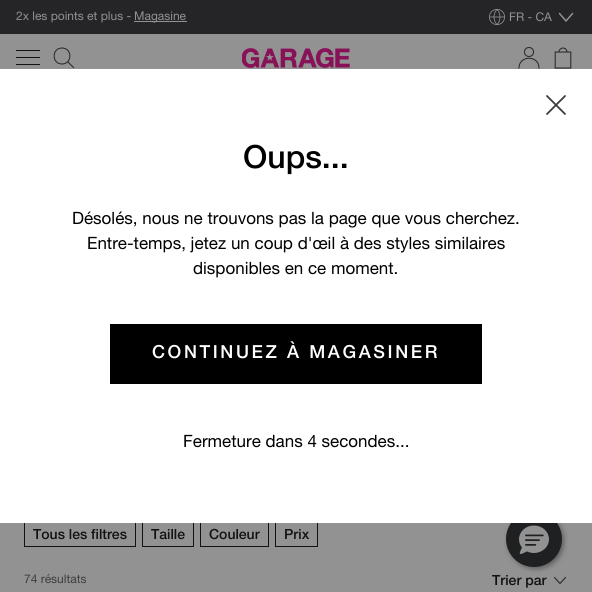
#include <cairo.h>
#include <math.h>
#include <stddef.h>

typedef struct { double x, y; const char *s; } line_t;
typedef struct { double x, y, w, h; unsigned color; } box_t;

static void ink(cairo_t *ctx, unsigned color) {
    cairo_set_source_rgb(ctx, (color >> 16) / 255.0, (color >> 8 & 255) / 255.0, (color & 255) / 255.0);
}

static void write_spaced(cairo_t *ctx, double x, double y, const char *s, double letter, double word) {
    cairo_move_to(ctx, x, y);
    while (*s) {
        char ch[5] = {0};
        int n = 0;
        do ch[n++] = *s++; while ((*s & 0xC0) == 0x80);
        cairo_show_text(ctx, ch);
        cairo_rel_move_to(ctx, letter + word * (*ch == ' '), 0);
    }
}

static void round_path(cairo_t *ctx, double x, double y, double w, double h, double r) {
    cairo_new_sub_path(ctx);
    cairo_arc(ctx, x + w - r, y + h - r, r, 0, M_PI / 2);
    cairo_arc(ctx, x + r, y + h - r, r, M_PI / 2, M_PI);
    cairo_arc(ctx, x + r, y + r, r, M_PI, 1.5 * M_PI);
    cairo_arc(ctx, x + w - r, y + r, r, 1.5 * M_PI, 2 * M_PI);
    cairo_close_path(ctx);
}

static void blur_box(cairo_t *ctx, double x, double y, double w, double h, double r, double blur, double alpha) {
    cairo_push_group_with_content(ctx, CAIRO_CONTENT_ALPHA);
    cairo_set_operator(ctx, CAIRO_OPERATOR_SOURCE);
    for (int i = 15; i >= -15 && fmin(w, h) + blur * i / 3 > 0; i -= 2) {
        double e = blur * i / 6;
        cairo_set_source_rgba(ctx, 0, 0, 0, alpha * erfc((i - 1) / 8.5) / 2);
        round_path(ctx, x - e, y - e, w + 2 * e, h + 2 * e, fmax(0, fmin(r + e + blur * .6, fmin(w, h) / 2 + e)));
        cairo_fill(ctx);
    }
    cairo_pattern_t *soft = cairo_pop_group(ctx);
    cairo_mask(ctx, soft);
    cairo_pattern_destroy(soft);
}

static void paste(cairo_t *ctx, const char *path, double x, double y, double w, double h) {
    cairo_surface_t *image = cairo_image_surface_create_from_png(path);
    cairo_save(ctx);
    cairo_set_source_surface(ctx, image, x, y);
    cairo_rectangle(ctx, x, y, w, h);
    cairo_fill(ctx);
    cairo_restore(ctx);
    cairo_surface_destroy(image);
}

int main(void) {
    cairo_surface_t *surface = cairo_image_surface_create(CAIRO_FORMAT_RGB24, 592, 592);
    cairo_t *ctx = cairo_create(surface);
    cairo_font_options_t *options = cairo_font_options_create();
    cairo_font_options_set_hint_metrics(options, CAIRO_HINT_METRICS_OFF);
    cairo_font_options_set_hint_style(options, CAIRO_HINT_STYLE_NONE);
    cairo_set_font_options(ctx, options);
    cairo_set_miter_limit(ctx, 4);
    ink(ctx, 0x929292);
    cairo_paint(ctx);
    ink(ctx, 0x252528);
    cairo_rectangle(ctx, 0, 0, 592, 34);
    cairo_fill(ctx);
    cairo_select_font_face(ctx, "Helvetica Neue", CAIRO_FONT_SLANT_NORMAL, CAIRO_FONT_WEIGHT_NORMAL);
    cairo_set_font_size(ctx, 12);
    ink(ctx, 0x929292);
    cairo_move_to(ctx, 16, 20);
    cairo_show_text(ctx, "2x les points et plus -");
    cairo_rectangle(ctx, 134, 21, 53, 1);
    cairo_fill(ctx);
    cairo_move_to(ctx, 134, 20);
    cairo_show_text(ctx, "Magasine");
    paste(ctx, "media/1.png", 489, 9, 16, 16);
    cairo_move_to(ctx, 509, 21);
    cairo_show_text(ctx, "FR - CA");
    cairo_new_path(ctx);
    cairo_move_to(ctx, 559.5, 13.5);
    cairo_line_to(ctx, 566, 21);
    cairo_line_to(ctx, 572.5, 13.5);
    cairo_set_line_width(ctx, 1.5);
    cairo_set_line_cap(ctx, CAIRO_LINE_CAP_ROUND);
    cairo_set_line_join(ctx, CAIRO_LINE_JOIN_ROUND);
    cairo_stroke(ctx);
    {
        static const box_t items[] = {
            {16, 57, 24, 1, 0x121212},
            {16, 50, 24, 1, 0x121212},
            {16, 64, 24, 1, 0x121212},
        };
        for (size_t i = 0; i < sizeof items / sizeof *items; i++) {
            ink(ctx, items[i].color);
            cairo_rectangle(ctx, items[i].x, items[i].y, items[i].w, items[i].h);
            cairo_fill(ctx);
        }
    }
    cairo_new_path(ctx);
    cairo_move_to(ctx, 73.5, 67.5);
    cairo_line_to(ctx, 68, 62);
    cairo_move_to(ctx, 62, 64);
    cairo_curve_to(ctx, 72.5, 64, 72.5, 48, 62, 48);
    cairo_curve_to(ctx, 51.5, 48, 51.5, 64, 62, 64);
    cairo_close_path(ctx);
    ink(ctx, 0x252528);
    cairo_set_line_width(ctx, 1);
    cairo_set_line_cap(ctx, CAIRO_LINE_CAP_SQUARE);
    cairo_set_line_join(ctx, CAIRO_LINE_JOIN_MITER);
    cairo_stroke(ctx);
    paste(ctx, "media/2.png", 242, 48, 108, 20);
    cairo_new_path(ctx);
    cairo_move_to(ctx, 519, 68);
    cairo_curve_to(ctx, 519, 55, 539, 55, 539, 68);
    cairo_stroke(ctx);
    cairo_arc(ctx, 529, 52, 4.5, 0, 2 * M_PI);
    cairo_set_line_cap(ctx, CAIRO_LINE_CAP_BUTT);
    cairo_stroke(ctx);
    paste(ctx, "media/3.png", 554, 47, 18, 22);
    cairo_rectangle(ctx, 24.5, 521.5, 111, 25);
    ink(ctx, 0x121212);
    cairo_stroke(ctx);
    cairo_rectangle(ctx, 142.5, 521.5, 51, 25);
    cairo_stroke(ctx);
    cairo_rectangle(ctx, 200.5, 521.5, 68, 25);
    cairo_stroke(ctx);
    cairo_rectangle(ctx, 275.5, 521.5, 42, 25);
    cairo_stroke(ctx);
    cairo_new_path(ctx);
    cairo_move_to(ctx, 554.5, 577.5);
    cairo_line_to(ctx, 560, 583.5);
    cairo_line_to(ctx, 565.5, 577.5);
    ink(ctx, 0x32302F);
    cairo_set_line_width(ctx, 1.2);
    cairo_set_line_cap(ctx, CAIRO_LINE_CAP_ROUND);
    cairo_set_line_join(ctx, CAIRO_LINE_JOIN_ROUND);
    cairo_stroke(ctx);
    ink(ctx, 0x292929);
    blur_box(ctx, 508, 513, 56, 56, 28, 2.5, 0.5);
    ink(ctx, 0x1F2021);
    cairo_arc(ctx, 534, 539, 28, 0, 2 * M_PI);
    cairo_fill(ctx);
    ink(ctx, 0xFFFFFF);
    cairo_rectangle(ctx, 0, 69, 592, 454);
    cairo_fill(ctx);
    cairo_new_path(ctx);
    cairo_move_to(ctx, 565, 96);
    cairo_line_to(ctx, 547, 114);
    cairo_move_to(ctx, 547, 96);
    cairo_line_to(ctx, 565, 114);
    ink(ctx, 0x403C3A);
    cairo_set_line_width(ctx, 1.8);
    cairo_stroke(ctx);
    cairo_select_font_face(ctx, "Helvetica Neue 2 Medium", CAIRO_FONT_SLANT_NORMAL, CAIRO_FONT_WEIGHT_NORMAL);
    cairo_set_font_size(ctx, 32);
    ink(ctx, 0x000000);
    cairo_move_to(ctx, 243, 168);
    cairo_show_text(ctx, "Oups...");
    cairo_select_font_face(ctx, "Helvetica Neue", CAIRO_FONT_SLANT_NORMAL, CAIRO_FONT_WEIGHT_NORMAL);
    cairo_set_font_size(ctx, 17);
    {
        static const line_t items[] = {
            {72, 224, "Désolés, nous ne trouvons pas la page que vous cherchez."},
            {87, 249, "Entre-temps, jetez un coup d'œil à des styles similaires"},
            {193, 274, "disponibles en ce moment."},
        };
        for (size_t i = 0; i < sizeof items / sizeof *items; i++) {
            cairo_move_to(ctx, items[i].x, items[i].y);
            cairo_show_text(ctx, items[i].s);
        }
    }
    cairo_rectangle(ctx, 110, 324, 372, 60);
    cairo_fill(ctx);
    cairo_select_font_face(ctx, "Helvetica Neue 2 Medium", CAIRO_FONT_SLANT_NORMAL, CAIRO_FONT_WEIGHT_NORMAL);
    cairo_set_font_size(ctx, 18);
    ink(ctx, 0xFFFFFF);
    write_spaced(ctx, 152, 358, "CONTINUEZ À MAGASINER", 2.6, 0);
    cairo_select_font_face(ctx, "Helvetica Neue", CAIRO_FONT_SLANT_NORMAL, CAIRO_FONT_WEIGHT_NORMAL);
    cairo_set_font_size(ctx, 17);
    ink(ctx, 0x000000);
    cairo_move_to(ctx, 183, 447);
    cairo_show_text(ctx, "Fermeture dans 4 secondes...");
    cairo_select_font_face(ctx, "Helvetica Neue Medium", CAIRO_FONT_SLANT_NORMAL, CAIRO_FONT_WEIGHT_NORMAL);
    cairo_set_font_size(ctx, 14);
    ink(ctx, 0x121212);
    {
        static const line_t items[] = {
            {33, 539, "Tous les filtres"},
            {151, 539, "Taille"},
            {209, 539, "Couleur"},
            {284, 539, "Prix"},
        };
        for (size_t i = 0; i < sizeof items / sizeof *items; i++) {
            cairo_move_to(ctx, items[i].x, items[i].y);
            cairo_show_text(ctx, items[i].s);
        }
    }
    cairo_select_font_face(ctx, "Helvetica Neue", CAIRO_FONT_SLANT_NORMAL, CAIRO_FONT_WEIGHT_NORMAL);
    cairo_set_font_size(ctx, 12);
    ink(ctx, 0x3E3E3E);
    cairo_move_to(ctx, 24, 583);
    cairo_show_text(ctx, "74 résultats");
    cairo_select_font_face(ctx, "Helvetica Neue Medium", CAIRO_FONT_SLANT_NORMAL, CAIRO_FONT_WEIGHT_NORMAL);
    cairo_set_font_size(ctx, 14);
    ink(ctx, 0x121212);
    cairo_move_to(ctx, 492, 585);
    cairo_show_text(ctx, "Trier par");
    paste(ctx, "media/4.png", 519, 525, 30, 29);
    cairo_surface_write_to_png(surface, "image.png");
    cairo_font_options_destroy(options);
    cairo_destroy(ctx);
    cairo_surface_destroy(surface);
    return 0;
}
